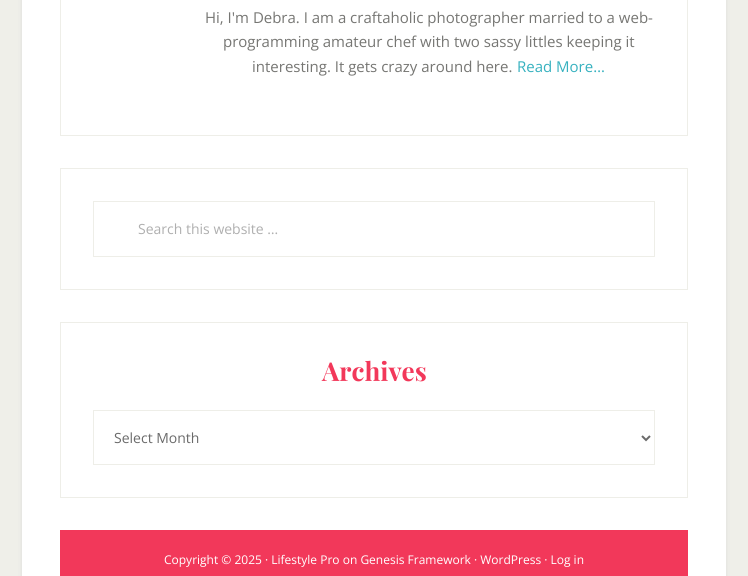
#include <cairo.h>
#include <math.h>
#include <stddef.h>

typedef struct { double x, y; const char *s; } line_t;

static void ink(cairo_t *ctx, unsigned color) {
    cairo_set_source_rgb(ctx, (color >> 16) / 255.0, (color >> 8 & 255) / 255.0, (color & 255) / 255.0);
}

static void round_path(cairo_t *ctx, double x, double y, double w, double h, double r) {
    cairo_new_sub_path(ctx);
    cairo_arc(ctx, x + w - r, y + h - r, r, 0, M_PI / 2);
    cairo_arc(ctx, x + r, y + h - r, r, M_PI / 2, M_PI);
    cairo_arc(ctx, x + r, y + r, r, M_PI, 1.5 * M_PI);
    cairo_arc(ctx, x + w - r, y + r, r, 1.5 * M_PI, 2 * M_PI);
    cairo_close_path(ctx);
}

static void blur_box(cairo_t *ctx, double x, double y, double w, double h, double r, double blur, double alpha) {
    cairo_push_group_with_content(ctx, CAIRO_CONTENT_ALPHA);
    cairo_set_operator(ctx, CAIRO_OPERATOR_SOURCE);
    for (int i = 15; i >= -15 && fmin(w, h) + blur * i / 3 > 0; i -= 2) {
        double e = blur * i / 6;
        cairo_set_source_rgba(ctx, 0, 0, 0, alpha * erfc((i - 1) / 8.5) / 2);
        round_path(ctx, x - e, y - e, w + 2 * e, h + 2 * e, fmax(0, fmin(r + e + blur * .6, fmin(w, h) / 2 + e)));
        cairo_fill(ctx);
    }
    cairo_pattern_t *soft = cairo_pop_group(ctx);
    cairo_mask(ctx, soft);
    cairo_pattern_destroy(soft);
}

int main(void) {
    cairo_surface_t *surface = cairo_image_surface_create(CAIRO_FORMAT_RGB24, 748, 576);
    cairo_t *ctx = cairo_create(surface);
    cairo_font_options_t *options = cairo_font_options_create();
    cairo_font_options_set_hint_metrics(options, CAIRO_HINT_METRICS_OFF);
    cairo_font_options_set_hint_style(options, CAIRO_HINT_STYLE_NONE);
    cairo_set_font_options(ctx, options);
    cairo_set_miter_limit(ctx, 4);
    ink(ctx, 0xEFEFE9);
    cairo_paint(ctx);
    ink(ctx, 0xDDDDDD);
    blur_box(ctx, 22, -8, 704, 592, 0, 2.5, 1);
    ink(ctx, 0xFFFFFF);
    cairo_rectangle(ctx, 22, 0, 704, 576);
    cairo_fill(ctx);
    cairo_rectangle(ctx, 60.5, -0.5, 627, 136);
    ink(ctx, 0xEEEEE8);
    cairo_set_line_width(ctx, 1);
    cairo_stroke(ctx);
    cairo_select_font_face(ctx, "Open Sans", CAIRO_FONT_SLANT_NORMAL, CAIRO_FONT_WEIGHT_NORMAL);
    cairo_set_font_size(ctx, 15);
    ink(ctx, 0x767673);
    {
        static const line_t items[] = {
            {205, 23, "Hi, I'm Debra. I am a craftaholic photographer married to a web-"},
            {223, 47, "programming amateur chef with two sassy littles keeping it"},
            {252, 72, "interesting. It gets crazy around here."},
        };
        for (size_t i = 0; i < sizeof items / sizeof *items; i++) {
            cairo_move_to(ctx, items[i].x, items[i].y);
            cairo_show_text(ctx, items[i].s);
        }
    }
    ink(ctx, 0x36B1BF);
    cairo_move_to(ctx, 517, 72);
    cairo_show_text(ctx, "Read More…");
    cairo_rectangle(ctx, 60.5, 168.5, 627, 121);
    ink(ctx, 0xEEEEE8);
    cairo_stroke(ctx);
    cairo_rectangle(ctx, 93.5, 201.5, 561, 55);
    cairo_stroke(ctx);
    cairo_set_font_size(ctx, 14);
    ink(ctx, 0xAFAFAF);
    cairo_move_to(ctx, 138, 234);
    cairo_show_text(ctx, "Search this website …");
    cairo_rectangle(ctx, 60.5, 322.5, 627, 175);
    ink(ctx, 0xEEEEE8);
    cairo_stroke(ctx);
    cairo_select_font_face(ctx, "Playfair Display", CAIRO_FONT_SLANT_NORMAL, CAIRO_FONT_WEIGHT_BOLD);
    cairo_set_font_size(ctx, 26);
    ink(ctx, 0xF2385A);
    cairo_move_to(ctx, 322, 381);
    cairo_show_text(ctx, "Archives");
    cairo_rectangle(ctx, 93.5, 410.5, 561, 54);
    ink(ctx, 0xEEEEE8);
    cairo_stroke(ctx);
    cairo_new_path(ctx);
    cairo_move_to(ctx, 642, 436);
    cairo_line_to(ctx, 646, 440);
    cairo_line_to(ctx, 650, 436);
    ink(ctx, 0x6A6A6A);
    cairo_set_line_width(ctx, 2);
    cairo_stroke(ctx);
    cairo_select_font_face(ctx, "Open Sans", CAIRO_FONT_SLANT_NORMAL, CAIRO_FONT_WEIGHT_NORMAL);
    cairo_set_font_size(ctx, 14);
    cairo_move_to(ctx, 114, 443);
    cairo_show_text(ctx, "Select Month");
    ink(ctx, 0xF2385A);
    cairo_rectangle(ctx, 60, 530, 628, 46);
    cairo_fill(ctx);
    cairo_set_font_size(ctx, 12);
    ink(ctx, 0xFFFFFF);
    cairo_move_to(ctx, 164, 564);
    cairo_show_text(ctx, "Copyright © 2025 · Lifestyle Pro on Genesis Framework · WordPress · Log in");
    cairo_surface_write_to_png(surface, "image.png");
    cairo_font_options_destroy(options);
    cairo_destroy(ctx);
    cairo_surface_destroy(surface);
    return 0;
}
